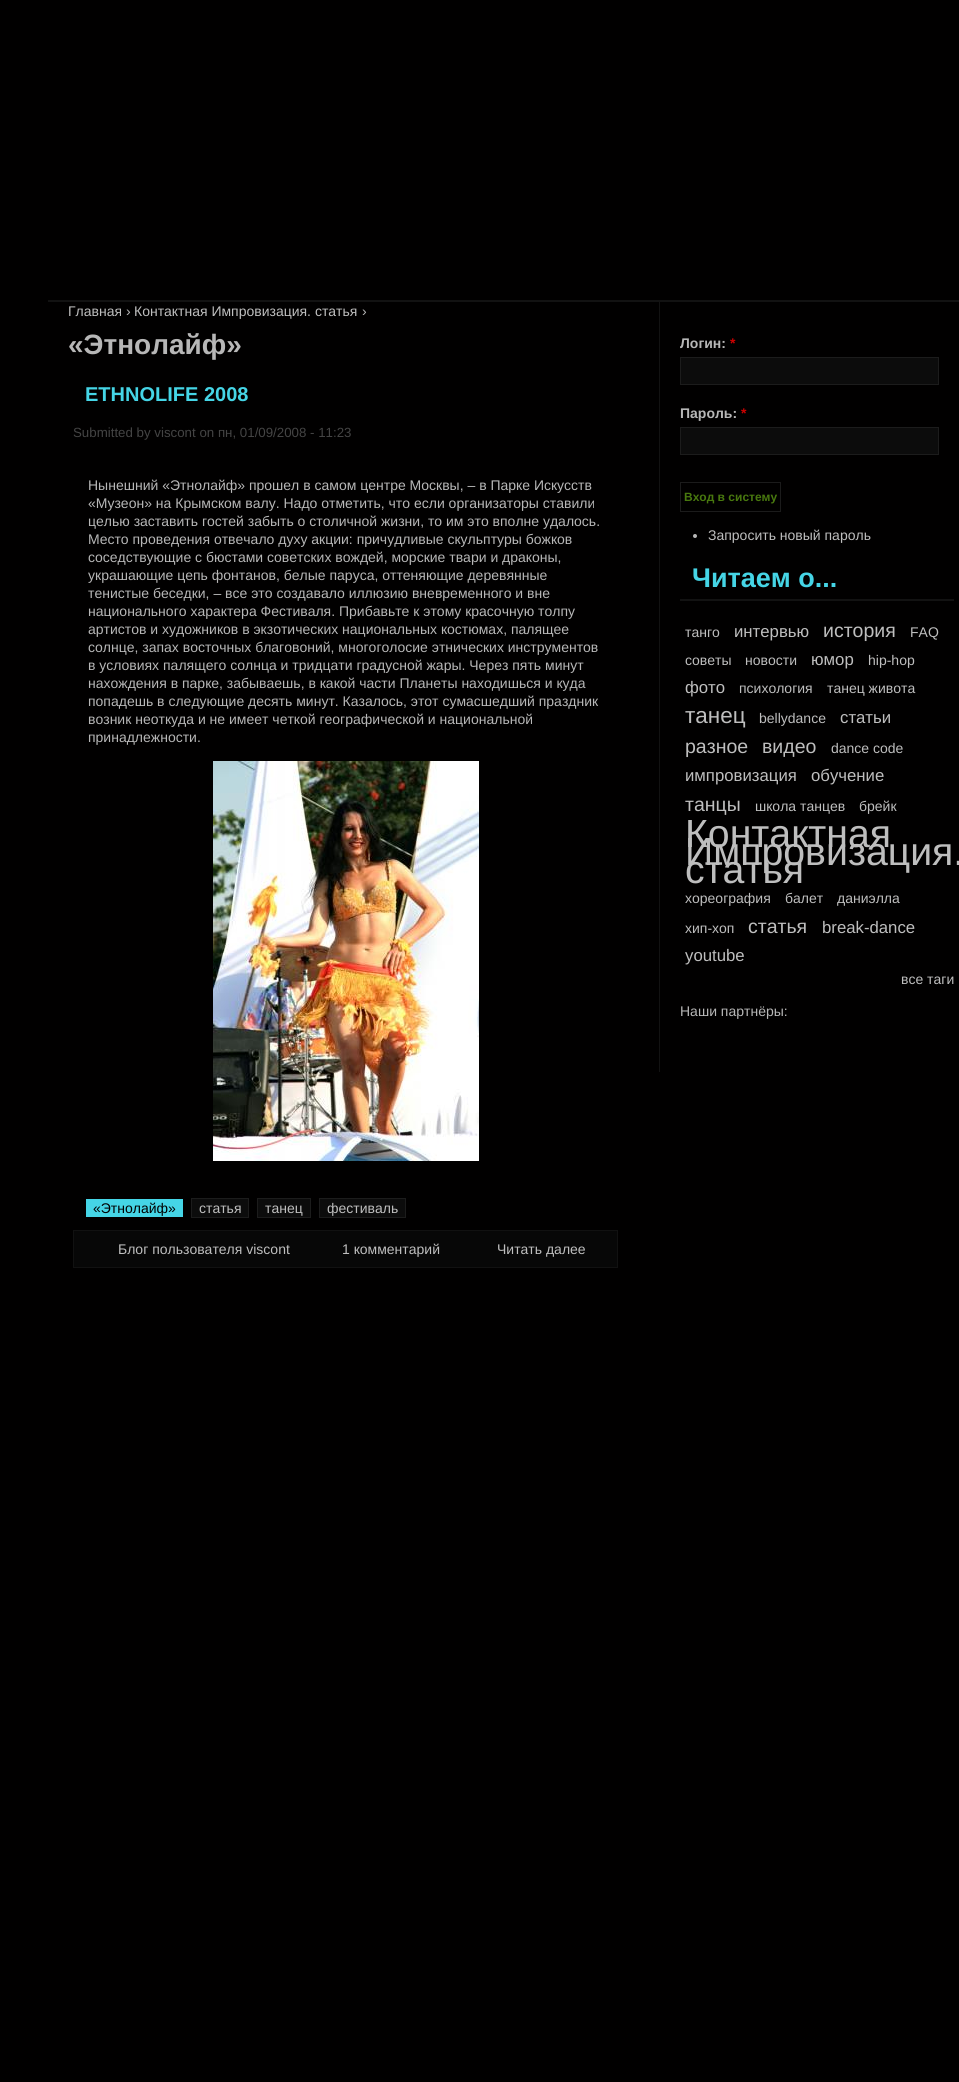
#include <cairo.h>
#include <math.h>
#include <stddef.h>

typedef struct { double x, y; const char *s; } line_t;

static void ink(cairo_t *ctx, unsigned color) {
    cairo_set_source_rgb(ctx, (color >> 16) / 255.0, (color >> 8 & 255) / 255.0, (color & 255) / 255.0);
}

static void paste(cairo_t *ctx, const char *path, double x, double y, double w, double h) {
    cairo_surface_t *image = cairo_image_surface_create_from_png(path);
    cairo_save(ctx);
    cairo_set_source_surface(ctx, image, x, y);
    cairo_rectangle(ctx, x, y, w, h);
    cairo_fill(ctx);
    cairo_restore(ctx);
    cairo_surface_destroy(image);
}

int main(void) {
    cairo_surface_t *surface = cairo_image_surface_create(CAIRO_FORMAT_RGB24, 959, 2082);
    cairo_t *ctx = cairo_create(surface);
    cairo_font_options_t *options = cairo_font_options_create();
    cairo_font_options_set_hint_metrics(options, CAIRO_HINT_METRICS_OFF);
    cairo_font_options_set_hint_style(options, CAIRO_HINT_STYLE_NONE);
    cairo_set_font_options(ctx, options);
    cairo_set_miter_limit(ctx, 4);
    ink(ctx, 0x010000);
    cairo_paint(ctx);
    ink(ctx, 0x121212);
    cairo_rectangle(ctx, 48, 300, 911, 2);
    cairo_fill(ctx);
    cairo_select_font_face(ctx, "Liberation Sans", CAIRO_FONT_SLANT_NORMAL, CAIRO_FONT_WEIGHT_NORMAL);
    cairo_set_font_size(ctx, 14);
    ink(ctx, 0xBEBEBE);
    cairo_move_to(ctx, 68, 316);
    cairo_show_text(ctx, "Главная");
    ink(ctx, 0xB7B7B7);
    cairo_move_to(ctx, 126, 316);
    cairo_show_text(ctx, "›");
    ink(ctx, 0xBEBEBE);
    cairo_move_to(ctx, 134, 316);
    cairo_show_text(ctx, "Контактная Импровизация. статья");
    ink(ctx, 0xB7B7B7);
    cairo_move_to(ctx, 362, 316);
    cairo_show_text(ctx, "›");
    cairo_select_font_face(ctx, "Liberation Sans", CAIRO_FONT_SLANT_NORMAL, CAIRO_FONT_WEIGHT_BOLD);
    cairo_set_font_size(ctx, 28);
    cairo_move_to(ctx, 68, 354);
    cairo_show_text(ctx, "«Этнолайф»");
    cairo_set_font_size(ctx, 20);
    ink(ctx, 0x45D5E6);
    cairo_move_to(ctx, 85, 401);
    cairo_show_text(ctx, "ETHNOLIFE 2008");
    cairo_select_font_face(ctx, "Liberation Sans", CAIRO_FONT_SLANT_NORMAL, CAIRO_FONT_WEIGHT_NORMAL);
    cairo_set_font_size(ctx, 13.3);
    ink(ctx, 0x444444);
    cairo_move_to(ctx, 73, 437);
    cairo_show_text(ctx, "Submitted by viscont on пн, 01/09/2008 - 11:23");
    cairo_set_font_size(ctx, 14);
    ink(ctx, 0xB7B7B7);
    {
        static const line_t items[] = {
            {88, 490, "Нынешний «Этнолайф» прошел в самом центре Москвы, – в Парке Искусств"},
            {88, 508, "«Музеон» на Крымском валу. Надо отметить, что если организаторы ставили"},
            {88, 526, "целью заставить гостей забыть о столичной жизни, то им это вполне удалось."},
            {88, 544, "Место проведения отвечало духу акции: причудливые скульптуры божков"},
            {88, 562, "соседствующие с бюстами советских вождей, морские твари и драконы,"},
            {88, 580, "украшающие цепь фонтанов, белые паруса, оттеняющие деревянные"},
            {88, 598, "тенистые беседки, – все это создавало иллюзию вневременного и вне"},
            {88, 616, "национального характера Фестиваля. Прибавьте к этому красочную толпу"},
            {88, 634, "артистов и художников в экзотических национальных костюмах, палящее"},
            {88, 652, "солнце, запах восточных благовоний, многоголосие этнических инструментов"},
            {88, 670, "в условиях палящего солнца и тридцати градусной жары. Через пять минут"},
            {88, 688, "нахождения в парке, забываешь, в какой части Планеты находишься и куда"},
            {88, 706, "попадешь в следующие десять минут. Казалось, этот сумасшедший праздник"},
            {88, 724, "возник неоткуда и не имеет четкой географической и национальной"},
            {88, 742, "принадлежности."},
        };
        for (size_t i = 0; i < sizeof items / sizeof *items; i++) {
            cairo_move_to(ctx, items[i].x, items[i].y);
            cairo_show_text(ctx, items[i].s);
        }
    }
    paste(ctx, "media/1.png", 213, 761, 266, 400);
    ink(ctx, 0x45D5E6);
    cairo_rectangle(ctx, 86, 1199, 97, 18);
    cairo_fill(ctx);
    ink(ctx, 0x000000);
    cairo_move_to(ctx, 93, 1213);
    cairo_show_text(ctx, "«Этнолайф»");
    ink(ctx, 0x0C0C0C);
    cairo_rectangle(ctx, 191.5, 1198.5, 57, 19);
    cairo_fill_preserve(ctx);
    ink(ctx, 0x1C1C1C);
    cairo_set_line_width(ctx, 1);
    cairo_stroke(ctx);
    ink(ctx, 0xBEBEBE);
    cairo_move_to(ctx, 199, 1213);
    cairo_show_text(ctx, "статья");
    ink(ctx, 0x0C0C0C);
    cairo_rectangle(ctx, 257.5, 1198.5, 53, 19);
    cairo_fill_preserve(ctx);
    ink(ctx, 0x1C1C1C);
    cairo_stroke(ctx);
    ink(ctx, 0xBEBEBE);
    cairo_move_to(ctx, 265, 1213);
    cairo_show_text(ctx, "танец");
    ink(ctx, 0x0C0C0C);
    cairo_rectangle(ctx, 319.5, 1198.5, 86, 19);
    cairo_fill_preserve(ctx);
    ink(ctx, 0x1C1C1C);
    cairo_stroke(ctx);
    ink(ctx, 0xBEBEBE);
    cairo_move_to(ctx, 327, 1213);
    cairo_show_text(ctx, "фестиваль");
    ink(ctx, 0x070707);
    cairo_rectangle(ctx, 73.5, 1230.5, 544, 37);
    cairo_fill_preserve(ctx);
    ink(ctx, 0x111111);
    cairo_stroke(ctx);
    ink(ctx, 0xBEBEBE);
    {
        static const line_t items[] = {
            {118, 1254, "Блог пользователя viscont"},
            {342, 1254, "1 комментарий"},
            {497, 1254, "Читать далее"},
        };
        for (size_t i = 0; i < sizeof items / sizeof *items; i++) {
            cairo_move_to(ctx, items[i].x, items[i].y);
            cairo_show_text(ctx, items[i].s);
        }
    }
    ink(ctx, 0x121212);
    cairo_rectangle(ctx, 659, 300, 1, 772);
    cairo_fill(ctx);
    cairo_select_font_face(ctx, "Liberation Sans", CAIRO_FONT_SLANT_NORMAL, CAIRO_FONT_WEIGHT_BOLD);
    ink(ctx, 0xB7B7B7);
    cairo_move_to(ctx, 680, 348);
    cairo_show_text(ctx, "Логин:");
    ink(ctx, 0xCC0000);
    cairo_move_to(ctx, 730, 348);
    cairo_show_text(ctx, "*");
    ink(ctx, 0x0C0C0C);
    cairo_rectangle(ctx, 680.5, 357.5, 258, 27);
    cairo_fill_preserve(ctx);
    ink(ctx, 0x1C1C1C);
    cairo_stroke(ctx);
    ink(ctx, 0xB7B7B7);
    cairo_move_to(ctx, 680, 418);
    cairo_show_text(ctx, "Пароль:");
    ink(ctx, 0xCC0000);
    cairo_move_to(ctx, 741, 418);
    cairo_show_text(ctx, "*");
    ink(ctx, 0x0C0C0C);
    cairo_rectangle(ctx, 680.5, 427.5, 258, 27);
    cairo_fill_preserve(ctx);
    ink(ctx, 0x1C1C1C);
    cairo_stroke(ctx);
    cairo_rectangle(ctx, 680.5, 482.5, 100, 29);
    ink(ctx, 0x1B1B1B);
    cairo_stroke(ctx);
    cairo_set_font_size(ctx, 12);
    ink(ctx, 0x48780E);
    cairo_move_to(ctx, 684, 501);
    cairo_show_text(ctx, "Вход в систему");
    ink(ctx, 0xB7B7B7);
    cairo_new_path(ctx);
    cairo_arc(ctx, 695, 536, 2, 0, 2 * M_PI);
    cairo_fill(ctx);
    cairo_select_font_face(ctx, "Liberation Sans", CAIRO_FONT_SLANT_NORMAL, CAIRO_FONT_WEIGHT_NORMAL);
    cairo_set_font_size(ctx, 14);
    ink(ctx, 0xBEBEBE);
    cairo_move_to(ctx, 708, 540);
    cairo_show_text(ctx, "Запросить новый пароль");
    ink(ctx, 0x121212);
    cairo_rectangle(ctx, 680, 599, 274, 2);
    cairo_fill(ctx);
    cairo_select_font_face(ctx, "Liberation Sans", CAIRO_FONT_SLANT_NORMAL, CAIRO_FONT_WEIGHT_BOLD);
    cairo_set_font_size(ctx, 27);
    ink(ctx, 0x45D5E6);
    cairo_move_to(ctx, 692, 587);
    cairo_show_text(ctx, "Читаем о...");
    cairo_select_font_face(ctx, "Liberation Sans", CAIRO_FONT_SLANT_NORMAL, CAIRO_FONT_WEIGHT_NORMAL);
    cairo_set_font_size(ctx, 14);
    ink(ctx, 0xBEBEBE);
    cairo_move_to(ctx, 685, 637);
    cairo_show_text(ctx, "танго");
    cairo_set_font_size(ctx, 16.75);
    cairo_move_to(ctx, 734, 637);
    cairo_show_text(ctx, "интервью");
    cairo_set_font_size(ctx, 19.5);
    cairo_move_to(ctx, 823, 637);
    cairo_show_text(ctx, "история");
    cairo_set_font_size(ctx, 14);
    {
        static const line_t items[] = {
            {910, 637, "FAQ"},
            {685, 665, "советы"},
            {745, 665, "новости"},
        };
        for (size_t i = 0; i < sizeof items / sizeof *items; i++) {
            cairo_move_to(ctx, items[i].x, items[i].y);
            cairo_show_text(ctx, items[i].s);
        }
    }
    cairo_set_font_size(ctx, 16.75);
    cairo_move_to(ctx, 811, 665);
    cairo_show_text(ctx, "юмор");
    cairo_set_font_size(ctx, 14);
    cairo_move_to(ctx, 868, 665);
    cairo_show_text(ctx, "hip-hop");
    cairo_set_font_size(ctx, 16.75);
    cairo_move_to(ctx, 685, 693);
    cairo_show_text(ctx, "фото");
    cairo_set_font_size(ctx, 14);
    cairo_move_to(ctx, 739, 693);
    cairo_show_text(ctx, "психология");
    cairo_move_to(ctx, 827, 693);
    cairo_show_text(ctx, "танец живота");
    cairo_set_font_size(ctx, 22.5);
    cairo_move_to(ctx, 685, 723);
    cairo_show_text(ctx, "танец");
    cairo_set_font_size(ctx, 14);
    cairo_move_to(ctx, 759, 723);
    cairo_show_text(ctx, "bellydance");
    cairo_set_font_size(ctx, 16.75);
    cairo_move_to(ctx, 840, 723);
    cairo_show_text(ctx, "статьи");
    cairo_set_font_size(ctx, 19.5);
    cairo_move_to(ctx, 685, 753);
    cairo_show_text(ctx, "разное");
    cairo_move_to(ctx, 762, 753);
    cairo_show_text(ctx, "видео");
    cairo_set_font_size(ctx, 14);
    cairo_move_to(ctx, 831, 753);
    cairo_show_text(ctx, "dance code");
    cairo_set_font_size(ctx, 16.75);
    cairo_move_to(ctx, 685, 781);
    cairo_show_text(ctx, "импровизация");
    cairo_move_to(ctx, 811, 781);
    cairo_show_text(ctx, "обучение");
    cairo_set_font_size(ctx, 19.5);
    cairo_move_to(ctx, 685, 811);
    cairo_show_text(ctx, "танцы");
    cairo_set_font_size(ctx, 14);
    cairo_move_to(ctx, 755, 811);
    cairo_show_text(ctx, "школа танцев");
    cairo_move_to(ctx, 859, 811);
    cairo_show_text(ctx, "брейк");
    cairo_set_font_size(ctx, 39.25);
    {
        static const line_t items[] = {
            {685, 847, "Контактная"},
            {685, 865, "Импровизация."},
            {685, 883, "статья"},
        };
        for (size_t i = 0; i < sizeof items / sizeof *items; i++) {
            cairo_move_to(ctx, items[i].x, items[i].y);
            cairo_show_text(ctx, items[i].s);
        }
    }
    cairo_set_font_size(ctx, 14);
    {
        static const line_t items[] = {
            {685, 903, "хореография"},
            {785, 903, "балет"},
            {837, 903, "даниэлла"},
            {685, 933, "хип-хоп"},
        };
        for (size_t i = 0; i < sizeof items / sizeof *items; i++) {
            cairo_move_to(ctx, items[i].x, items[i].y);
            cairo_show_text(ctx, items[i].s);
        }
    }
    cairo_set_font_size(ctx, 19.5);
    cairo_move_to(ctx, 748, 933);
    cairo_show_text(ctx, "статья");
    cairo_set_font_size(ctx, 16.75);
    cairo_move_to(ctx, 822, 933);
    cairo_show_text(ctx, "break-dance");
    cairo_move_to(ctx, 685, 961);
    cairo_show_text(ctx, "youtube");
    cairo_set_font_size(ctx, 14);
    cairo_move_to(ctx, 901, 984);
    cairo_show_text(ctx, "все таги");
    ink(ctx, 0xB7B7B7);
    cairo_move_to(ctx, 680, 1016);
    cairo_show_text(ctx, "Наши партнёры:");
    cairo_surface_write_to_png(surface, "image.png");
    cairo_font_options_destroy(options);
    cairo_destroy(ctx);
    cairo_surface_destroy(surface);
    return 0;
}
